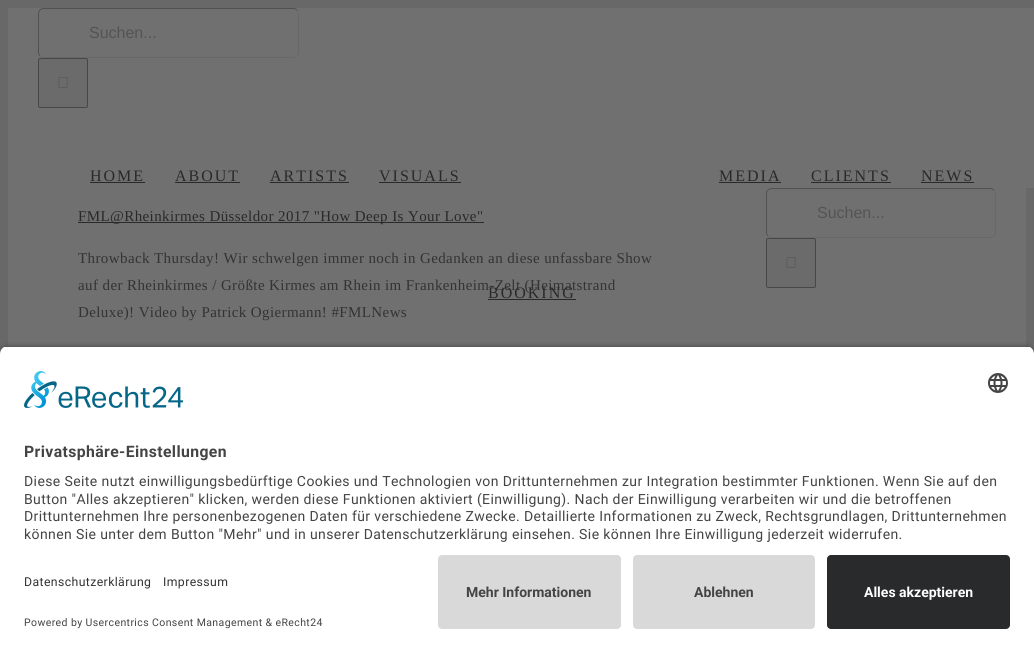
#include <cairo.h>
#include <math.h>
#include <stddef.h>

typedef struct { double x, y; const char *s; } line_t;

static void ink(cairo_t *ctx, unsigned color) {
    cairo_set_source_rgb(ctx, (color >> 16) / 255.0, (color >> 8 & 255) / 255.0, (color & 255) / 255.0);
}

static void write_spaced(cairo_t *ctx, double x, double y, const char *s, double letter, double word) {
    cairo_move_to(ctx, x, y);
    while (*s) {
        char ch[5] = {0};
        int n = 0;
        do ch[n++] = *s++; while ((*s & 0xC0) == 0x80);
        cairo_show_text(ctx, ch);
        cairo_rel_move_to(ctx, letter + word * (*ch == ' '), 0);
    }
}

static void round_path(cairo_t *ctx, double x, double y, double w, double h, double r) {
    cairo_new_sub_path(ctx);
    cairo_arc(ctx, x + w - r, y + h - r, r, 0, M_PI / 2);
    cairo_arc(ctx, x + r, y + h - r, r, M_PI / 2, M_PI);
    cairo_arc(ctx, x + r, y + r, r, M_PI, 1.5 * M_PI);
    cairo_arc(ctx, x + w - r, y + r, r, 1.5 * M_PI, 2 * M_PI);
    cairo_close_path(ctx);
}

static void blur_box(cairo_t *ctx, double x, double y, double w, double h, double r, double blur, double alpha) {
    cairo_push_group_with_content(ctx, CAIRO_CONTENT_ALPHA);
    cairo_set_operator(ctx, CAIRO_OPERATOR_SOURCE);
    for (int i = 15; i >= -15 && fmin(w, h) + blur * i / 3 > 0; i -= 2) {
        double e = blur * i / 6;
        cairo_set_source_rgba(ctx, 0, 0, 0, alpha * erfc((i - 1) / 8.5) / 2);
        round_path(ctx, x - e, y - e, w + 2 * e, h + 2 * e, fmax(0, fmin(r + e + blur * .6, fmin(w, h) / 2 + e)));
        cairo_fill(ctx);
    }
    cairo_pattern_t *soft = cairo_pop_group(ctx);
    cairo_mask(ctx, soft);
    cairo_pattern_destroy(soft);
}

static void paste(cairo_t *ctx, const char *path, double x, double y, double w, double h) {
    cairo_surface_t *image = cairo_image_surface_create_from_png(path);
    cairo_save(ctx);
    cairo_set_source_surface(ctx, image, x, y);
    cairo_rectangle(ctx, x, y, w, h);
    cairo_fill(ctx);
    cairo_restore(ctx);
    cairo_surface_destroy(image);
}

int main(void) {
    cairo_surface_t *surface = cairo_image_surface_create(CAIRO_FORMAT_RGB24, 1034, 653);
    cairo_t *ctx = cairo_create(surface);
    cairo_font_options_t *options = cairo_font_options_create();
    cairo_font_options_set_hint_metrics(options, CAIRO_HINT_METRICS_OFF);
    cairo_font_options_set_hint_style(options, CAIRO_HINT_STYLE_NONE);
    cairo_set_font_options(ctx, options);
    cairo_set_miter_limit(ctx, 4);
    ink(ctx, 0x686868);
    cairo_paint(ctx);
    ink(ctx, 0x707070);
    cairo_rectangle(ctx, 8, 188, 1018, 159);
    cairo_fill(ctx);
    cairo_rectangle(ctx, 8, 8, 1026, 180);
    cairo_fill(ctx);
    cairo_new_path(ctx);
    cairo_move_to(ctx, 297, 10);
    cairo_curve_to(ctx, 298, 11, 298.5, 12.5, 298.5, 14);
    cairo_line_to(ctx, 298.5, 52);
    cairo_curve_to(ctx, 298.5, 53.5, 298, 55, 297, 56);
    cairo_curve_to(ctx, 296, 57, 294.5, 57.5, 293, 57.5);
    cairo_line_to(ctx, 44, 57.5);
    cairo_curve_to(ctx, 42.5, 57.5, 41, 57, 40, 56);
    ink(ctx, 0x686868);
    cairo_set_line_width(ctx, 1);
    cairo_stroke(ctx);
    cairo_new_path(ctx);
    cairo_move_to(ctx, 40, 56);
    cairo_curve_to(ctx, 39, 55, 38.5, 53.5, 38.5, 52);
    cairo_line_to(ctx, 38.5, 14);
    cairo_curve_to(ctx, 38.5, 12.5, 39, 11, 40, 10);
    cairo_curve_to(ctx, 41, 9, 42.5, 8.5, 44, 8.5);
    cairo_line_to(ctx, 293, 8.5);
    cairo_curve_to(ctx, 294.5, 8.5, 296, 9, 297, 10);
    ink(ctx, 0x515151);
    cairo_stroke(ctx);
    cairo_select_font_face(ctx, "Liberation Sans", CAIRO_FONT_SLANT_NORMAL, CAIRO_FONT_WEIGHT_NORMAL);
    cairo_set_font_size(ctx, 16);
    ink(ctx, 0x535455);
    cairo_move_to(ctx, 89, 38);
    cairo_show_text(ctx, "Suchen...");
    ink(ctx, 0x6B6B6B);
    round_path(ctx, 38.5, 58.5, 49, 49, 1.5);
    cairo_fill_preserve(ctx);
    ink(ctx, 0x474747);
    cairo_stroke(ctx);
    paste(ctx, "media/1.png", 58, 77, 10, 11);
    cairo_select_font_face(ctx, "Liberation Serif", CAIRO_FONT_SLANT_NORMAL, CAIRO_FONT_WEIGHT_NORMAL);
    ink(ctx, 0x292929);
    write_spaced(ctx, 90, 181, "HOME", 2, 0);
    cairo_rectangle(ctx, 90, 182, 55, 1);
    cairo_fill(ctx);
    write_spaced(ctx, 175, 181, "ABOUT", 2, 0);
    cairo_rectangle(ctx, 175, 182, 65, 1);
    cairo_fill(ctx);
    write_spaced(ctx, 270, 181, "ARTISTS", 2, 0);
    cairo_rectangle(ctx, 270, 182, 79, 1);
    cairo_fill(ctx);
    write_spaced(ctx, 379, 181, "VISUALS", 2, 0);
    cairo_rectangle(ctx, 379, 182, 82, 1);
    cairo_fill(ctx);
    write_spaced(ctx, 719, 181, "MEDIA", 2, 0);
    cairo_rectangle(ctx, 719, 182, 62, 1);
    cairo_fill(ctx);
    write_spaced(ctx, 811, 181, "CLIENTS", 2, 0);
    cairo_rectangle(ctx, 811, 182, 80, 1);
    cairo_fill(ctx);
    write_spaced(ctx, 921, 181, "NEWS", 2, 0);
    cairo_rectangle(ctx, 921, 182, 53, 1);
    cairo_fill(ctx);
    cairo_set_font_size(ctx, 15);
    ink(ctx, 0x333333);
    write_spaced(ctx, 78, 290, "auf der Rheinkirmes / Größte Kirmes am Rhein im Frankenheim-Zelt (Heimatstrand", 0.4, 0);
    cairo_set_font_size(ctx, 16);
    ink(ctx, 0x292929);
    write_spaced(ctx, 488, 298, "BOOKING", 2, 0);
    cairo_rectangle(ctx, 488, 299, 88, 1);
    cairo_fill(ctx);
    cairo_rectangle(ctx, 78, 222, 406, 1);
    cairo_fill(ctx);
    cairo_set_font_size(ctx, 15);
    write_spaced(ctx, 78, 221, "FML@Rheinkirmes Düsseldor 2017 \"How Deep Is Your Love\"", 0.4, 0);
    ink(ctx, 0x333333);
    write_spaced(ctx, 78, 263, "Throwback Thursday! Wir schwelgen immer noch in Gedanken an diese unfassbare Show", 0.4, 0);
    write_spaced(ctx, 78, 317, "Deluxe)! Video by Patrick Ogiermann! #FMLNews", 0.4, 0);
    cairo_new_path(ctx);
    cairo_move_to(ctx, 994, 190);
    cairo_curve_to(ctx, 995, 191, 995.5, 192.5, 995.5, 194);
    cairo_line_to(ctx, 995.5, 232);
    cairo_curve_to(ctx, 995.5, 233.5, 995, 235, 994, 236);
    cairo_curve_to(ctx, 993, 237, 991.5, 237.5, 990, 237.5);
    cairo_line_to(ctx, 772, 237.5);
    cairo_curve_to(ctx, 770.5, 237.5, 769, 237, 768, 236);
    ink(ctx, 0x686868);
    cairo_stroke(ctx);
    cairo_new_path(ctx);
    cairo_move_to(ctx, 768, 236);
    cairo_curve_to(ctx, 767, 235, 766.5, 233.5, 766.5, 232);
    cairo_line_to(ctx, 766.5, 194);
    cairo_curve_to(ctx, 766.5, 192.5, 767, 191, 768, 190);
    cairo_curve_to(ctx, 769, 189, 770.5, 188.5, 772, 188.5);
    cairo_line_to(ctx, 990, 188.5);
    cairo_curve_to(ctx, 991.5, 188.5, 993, 189, 994, 190);
    ink(ctx, 0x515151);
    cairo_stroke(ctx);
    cairo_select_font_face(ctx, "Liberation Sans", CAIRO_FONT_SLANT_NORMAL, CAIRO_FONT_WEIGHT_NORMAL);
    cairo_set_font_size(ctx, 16);
    ink(ctx, 0x535455);
    cairo_move_to(ctx, 817, 218);
    cairo_show_text(ctx, "Suchen...");
    ink(ctx, 0x6B6B6B);
    round_path(ctx, 766.5, 238.5, 49, 49, 1.5);
    cairo_fill_preserve(ctx);
    ink(ctx, 0x474747);
    cairo_stroke(ctx);
    paste(ctx, "media/1.png", 786, 257, 10, 11);
    ink(ctx, 0x000000);
    blur_box(ctx, 0, 349, 1034, 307, 8, 3.5, 0.8);
    cairo_save(ctx);
    cairo_new_path(ctx);
    cairo_move_to(ctx, 8, 346);
    cairo_line_to(ctx, 1026, 346);
    cairo_curve_to(ctx, 1030.5, 346, 1034, 349.5, 1034, 354);
    cairo_line_to(ctx, 1034, 547);
    cairo_line_to(ctx, 0, 547);
    cairo_line_to(ctx, 0, 354);
    cairo_curve_to(ctx, 0, 349.5, 3.5, 346, 8, 346);
    cairo_close_path(ctx);
    cairo_clip(ctx);
    ink(ctx, 0xFFFFFF);
    cairo_rectangle(ctx, 0, 347, 1034, 200);
    cairo_fill(ctx);
    cairo_restore(ctx);
    paste(ctx, "media/2.png", 24, 371, 160, 37);
    paste(ctx, "media/3.png", 988, 373, 20, 20);
    cairo_select_font_face(ctx, "Roboto", CAIRO_FONT_SLANT_NORMAL, CAIRO_FONT_WEIGHT_BOLD);
    cairo_set_font_size(ctx, 15.75);
    ink(ctx, 0x444444);
    write_spaced(ctx, 24, 457, "Privatsphäre-Einstellungen", 0.4, 0);
    cairo_select_font_face(ctx, "Roboto", CAIRO_FONT_SLANT_NORMAL, CAIRO_FONT_WEIGHT_NORMAL);
    cairo_set_font_size(ctx, 14);
    {
        static const line_t items[] = {
            {24, 486, "Diese Seite nutzt einwilligungsbedürftige Cookies und Technologien von Drittunternehmen zur Integration bestimmter Funktionen. Wenn Sie auf den"},
            {24, 504, "Button \"Alles akzeptieren\" klicken, werden diese Funktionen aktiviert (Einwilligung). Nach der Einwilligung verarbeiten wir und die betroffenen"},
            {24, 521, "Drittunternehmen Ihre personenbezogenen Daten für verschiedene Zwecke. Detaillierte Informationen zu Zweck, Rechtsgrundlagen, Drittunternehmen"},
            {24, 539, "können Sie unter dem Button \"Mehr\" und in unserer Datenschutzerklärung einsehen. Sie können Ihre Einwilligung jederzeit widerrufen."},
        };
        for (size_t i = 0; i < sizeof items / sizeof *items; i++) {
            write_spaced(ctx, items[i].x, items[i].y, items[i].s, 0.4, 0);
        }
    }
    ink(ctx, 0xFFFFFF);
    cairo_rectangle(ctx, 0, 547, 1034, 106);
    cairo_fill(ctx);
    cairo_set_font_size(ctx, 12.25);
    ink(ctx, 0x333333);
    write_spaced(ctx, 24, 586, "Datenschutzerklärung", 0.4, 0);
    write_spaced(ctx, 163, 586, "Impressum", 0.4, 0);
    cairo_set_font_size(ctx, 10.5);
    ink(ctx, 0x444444);
    write_spaced(ctx, 24, 626, "Powered by Usercentrics Consent Management & eRecht24", 0.4, 0);
    ink(ctx, 0xD9D9D9);
    round_path(ctx, 438, 555, 183, 74, 4);
    cairo_fill(ctx);
    cairo_select_font_face(ctx, "Roboto", CAIRO_FONT_SLANT_NORMAL, CAIRO_FONT_WEIGHT_BOLD);
    cairo_set_font_size(ctx, 14);
    ink(ctx, 0x444444);
    cairo_move_to(ctx, 466, 597);
    cairo_show_text(ctx, "Mehr Informationen");
    ink(ctx, 0xD9D9D9);
    round_path(ctx, 633, 555, 182, 74, 4);
    cairo_fill(ctx);
    ink(ctx, 0x444444);
    cairo_move_to(ctx, 694, 597);
    cairo_show_text(ctx, "Ablehnen");
    ink(ctx, 0x292A2B);
    round_path(ctx, 827, 555, 183, 74, 4);
    cairo_fill(ctx);
    ink(ctx, 0xFFFFFF);
    cairo_move_to(ctx, 864, 597);
    cairo_show_text(ctx, "Alles akzeptieren");
    cairo_surface_write_to_png(surface, "image.png");
    cairo_font_options_destroy(options);
    cairo_destroy(ctx);
    cairo_surface_destroy(surface);
    return 0;
}
